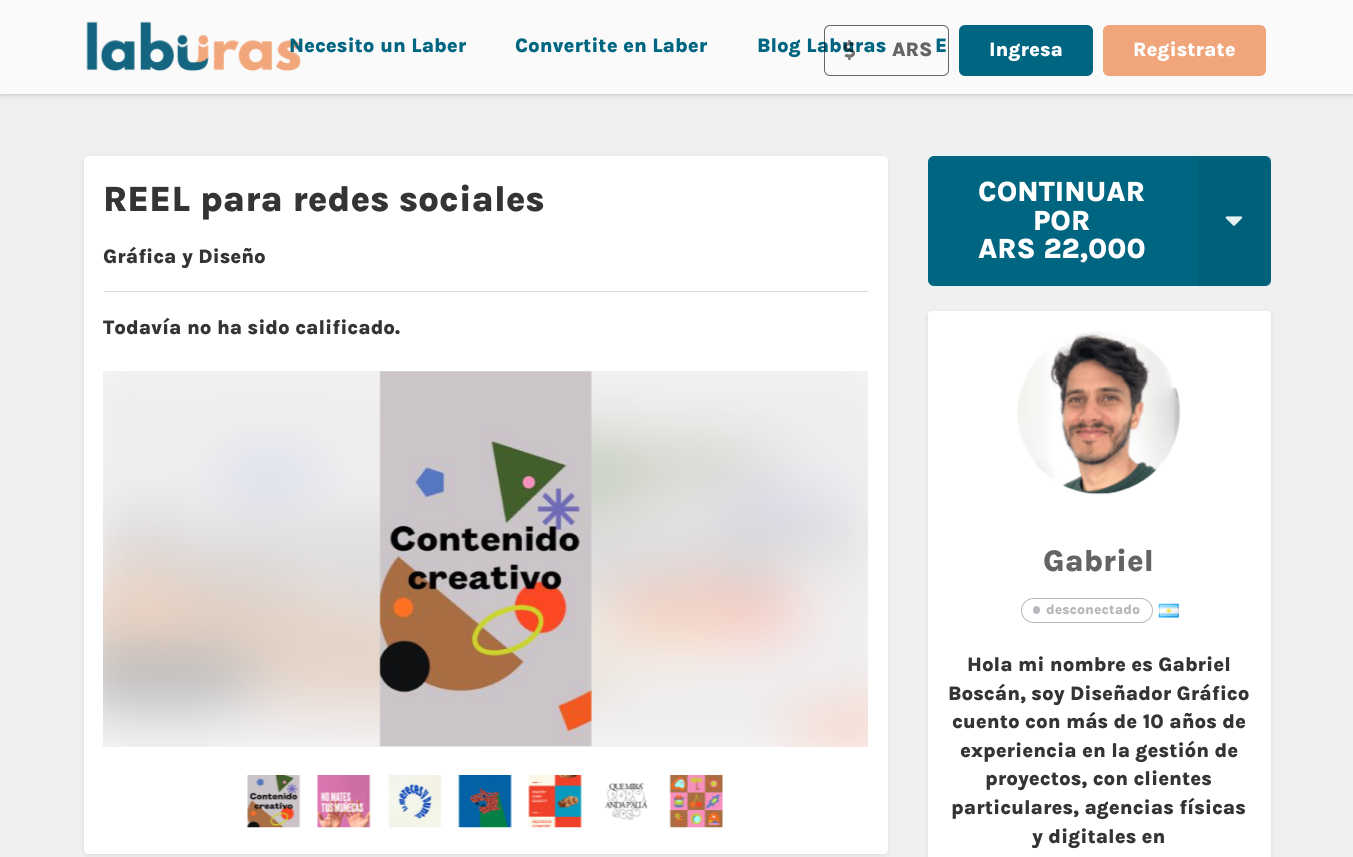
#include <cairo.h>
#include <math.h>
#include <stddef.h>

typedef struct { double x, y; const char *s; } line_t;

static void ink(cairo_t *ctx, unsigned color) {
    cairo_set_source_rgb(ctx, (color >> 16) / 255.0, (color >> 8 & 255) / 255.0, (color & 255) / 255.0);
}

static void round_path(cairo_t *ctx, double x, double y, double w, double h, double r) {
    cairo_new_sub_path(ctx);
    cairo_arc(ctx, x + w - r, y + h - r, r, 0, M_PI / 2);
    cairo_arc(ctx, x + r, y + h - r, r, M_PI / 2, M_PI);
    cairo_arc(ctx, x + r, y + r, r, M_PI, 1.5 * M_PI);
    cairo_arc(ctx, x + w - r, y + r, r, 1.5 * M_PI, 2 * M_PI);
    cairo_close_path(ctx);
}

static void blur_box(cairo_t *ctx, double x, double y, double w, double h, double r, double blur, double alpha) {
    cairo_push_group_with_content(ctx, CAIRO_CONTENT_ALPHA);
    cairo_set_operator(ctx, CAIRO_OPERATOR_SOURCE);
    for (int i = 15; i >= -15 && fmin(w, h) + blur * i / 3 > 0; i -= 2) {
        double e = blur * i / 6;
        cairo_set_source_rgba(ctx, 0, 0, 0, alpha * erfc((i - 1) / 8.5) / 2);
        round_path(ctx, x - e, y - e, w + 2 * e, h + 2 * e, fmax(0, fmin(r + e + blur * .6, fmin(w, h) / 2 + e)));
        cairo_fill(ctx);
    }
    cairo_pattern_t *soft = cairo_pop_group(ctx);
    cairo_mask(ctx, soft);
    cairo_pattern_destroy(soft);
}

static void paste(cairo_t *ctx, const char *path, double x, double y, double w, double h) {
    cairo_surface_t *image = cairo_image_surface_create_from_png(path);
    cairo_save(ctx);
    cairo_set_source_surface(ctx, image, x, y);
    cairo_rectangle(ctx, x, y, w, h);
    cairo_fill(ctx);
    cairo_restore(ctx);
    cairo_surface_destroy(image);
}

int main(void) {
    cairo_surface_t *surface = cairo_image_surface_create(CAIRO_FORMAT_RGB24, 1353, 857);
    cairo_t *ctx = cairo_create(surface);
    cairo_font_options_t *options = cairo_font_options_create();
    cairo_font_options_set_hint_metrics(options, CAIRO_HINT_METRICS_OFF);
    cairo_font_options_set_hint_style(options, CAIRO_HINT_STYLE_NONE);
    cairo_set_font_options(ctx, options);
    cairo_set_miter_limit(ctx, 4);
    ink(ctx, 0xEEF0F2);
    cairo_paint(ctx);
    ink(ctx, 0x000000);
    blur_box(ctx, 1, 3, 1352, 91, 0, 3, 0.13);
    blur_box(ctx, 1, 3, 1352, 91, 0, 3, 0.13);
    ink(ctx, 0xFAFAFA);
    cairo_rectangle(ctx, 0, 0, 1353, 94);
    cairo_fill(ctx);
    paste(ctx, "media/1.png", 86, 21, 215, 51);
    cairo_select_font_face(ctx, "Karla ExtraBold", CAIRO_FONT_SLANT_NORMAL, CAIRO_FONT_WEIGHT_NORMAL);
    cairo_set_font_size(ctx, 20);
    ink(ctx, 0x006580);
    {
        static const line_t items[] = {
            {289, 52, "Necesito un Laber"},
            {515, 52, "Convertite en Laber"},
            {757, 52, "Blog Laburas"},
            {935, 52, "E"},
        };
        for (size_t i = 0; i < sizeof items / sizeof *items; i++) {
            cairo_move_to(ctx, items[i].x, items[i].y);
            cairo_show_text(ctx, items[i].s);
        }
    }
    round_path(ctx, 959, 25, 134, 51, 6);
    cairo_fill(ctx);
    ink(ctx, 0xFFFFFF);
    cairo_move_to(ctx, 989, 56);
    cairo_show_text(ctx, "Ingresa");
    ink(ctx, 0xF0A57B);
    round_path(ctx, 1103, 25, 163, 51, 6);
    cairo_fill(ctx);
    ink(ctx, 0xFFFFFF);
    cairo_move_to(ctx, 1133, 56);
    cairo_show_text(ctx, "Registrate");
    round_path(ctx, 824.5, 25.5, 124, 50, 5.5);
    cairo_set_source_rgba(ctx, 0, 0, 0, 0.6);
    cairo_set_line_width(ctx, 1);
    cairo_stroke(ctx);
    paste(ctx, "media/2.png", 843, 40, 12, 20);
    ink(ctx, 0x646464);
    cairo_move_to(ctx, 892, 56);
    cairo_show_text(ctx, "ARS");
    ink(ctx, 0x000000);
    blur_box(ctx, 85, 159, 801, 695, 3, 3, 0.13);
    ink(ctx, 0xFFFFFF);
    round_path(ctx, 84, 156, 804, 698, 4);
    cairo_fill(ctx);
    cairo_set_font_size(ctx, 36);
    ink(ctx, 0x333435);
    cairo_move_to(ctx, 103, 211);
    cairo_show_text(ctx, "REEL para redes sociales");
    cairo_set_font_size(ctx, 20);
    cairo_move_to(ctx, 103, 263);
    cairo_show_text(ctx, "Gráfica y Diseño");
    ink(ctx, 0xDEDEDE);
    cairo_rectangle(ctx, 104, 291, 764, 1);
    cairo_fill(ctx);
    ink(ctx, 0x333435);
    cairo_move_to(ctx, 103, 334);
    cairo_show_text(ctx, "Todavía no ha sido calificado.");
    paste(ctx, "media/3.png", 103, 371, 765, 376);
    paste(ctx, "media/4.png", 379, 371, 213, 376);
    paste(ctx, "media/5.png", 247, 775, 54, 53);
    paste(ctx, "media/6.png", 317, 775, 54, 53);
    paste(ctx, "media/7.png", 388, 775, 54, 53);
    paste(ctx, "media/8.png", 458, 775, 54, 53);
    paste(ctx, "media/9.png", 528, 775, 54, 53);
    paste(ctx, "media/10.png", 604, 782, 44, 38);
    paste(ctx, "media/11.png", 669, 775, 54, 53);
    ink(ctx, 0x006580);
    round_path(ctx, 928, 156, 343, 130, 6);
    cairo_fill(ctx);
    cairo_set_font_size(ctx, 28.5);
    ink(ctx, 0xFFFFFF);
    cairo_move_to(ctx, 978, 201);
    cairo_show_text(ctx, "CONTINUAR");
    cairo_set_source_rgba(ctx, 0, 0, 0, 0.05);
    cairo_rectangle(ctx, 1198, 156, 73, 130);
    cairo_fill(ctx);
    paste(ctx, "media/12.png", 1225, 216, 18, 10);
    ink(ctx, 0xFFFFFF);
    cairo_move_to(ctx, 1033, 230);
    cairo_show_text(ctx, "POR");
    cairo_move_to(ctx, 978, 258);
    cairo_show_text(ctx, "ARS 22,000");
    ink(ctx, 0x000000);
    blur_box(ctx, 929, 314, 341, 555, 3, 3, 0.13);
    ink(ctx, 0xFFFFFF);
    round_path(ctx, 928, 311, 343, 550, 4);
    cairo_fill(ctx);
    paste(ctx, "media/13.png", 1017, 331, 164, 164);
    cairo_set_font_size(ctx, 30.5);
    ink(ctx, 0x646464);
    cairo_move_to(ctx, 1043, 571);
    cairo_show_text(ctx, "Gabriel");
    round_path(ctx, 1021.5, 598.5, 131, 24, 12);
    ink(ctx, 0xB8B8BC);
    cairo_stroke(ctx);
    round_path(ctx, 1033, 606, 7, 8, 3.5);
    cairo_fill(ctx);
    cairo_set_font_size(ctx, 13.75);
    cairo_move_to(ctx, 1046, 614);
    cairo_show_text(ctx, "desconectado");
    paste(ctx, "media/14.png", 1158, 603, 21, 15);
    cairo_set_font_size(ctx, 20);
    ink(ctx, 0x333435);
    {
        static const line_t items[] = {
            {967, 671, "Hola mi nombre es Gabriel"},
            {948, 700, "Boscán, soy Diseñador Gráfico"},
            {952, 728, "cuento con más de 10 años de"},
            {960, 757, "experiencia en la gestión de"},
            {985, 785, "proyectos, con clientes"},
            {951, 814, "particulares, agencias físicas"},
            {1032, 843, "y digitales en"},
        };
        for (size_t i = 0; i < sizeof items / sizeof *items; i++) {
            cairo_move_to(ctx, items[i].x, items[i].y);
            cairo_show_text(ctx, items[i].s);
        }
    }
    cairo_surface_write_to_png(surface, "image.png");
    cairo_font_options_destroy(options);
    cairo_destroy(ctx);
    cairo_surface_destroy(surface);
    return 0;
}
